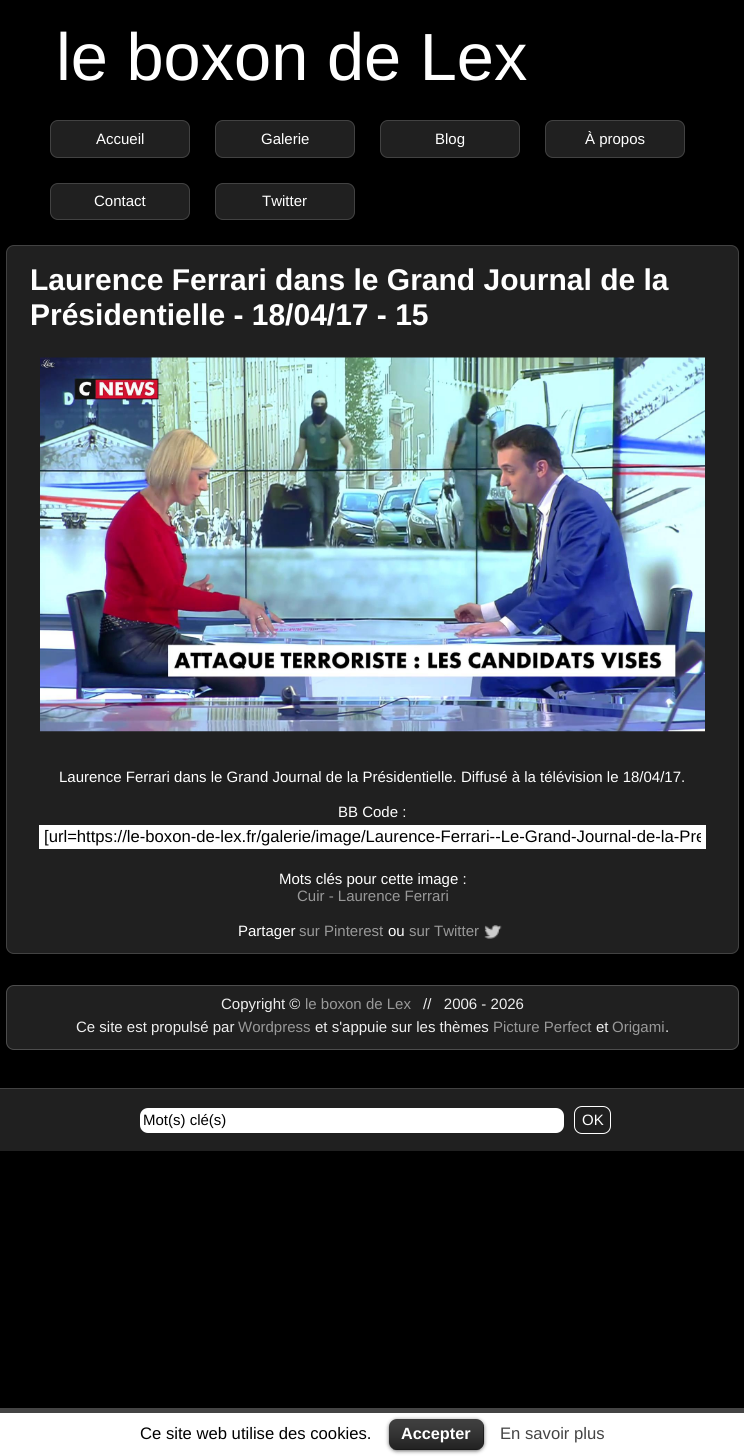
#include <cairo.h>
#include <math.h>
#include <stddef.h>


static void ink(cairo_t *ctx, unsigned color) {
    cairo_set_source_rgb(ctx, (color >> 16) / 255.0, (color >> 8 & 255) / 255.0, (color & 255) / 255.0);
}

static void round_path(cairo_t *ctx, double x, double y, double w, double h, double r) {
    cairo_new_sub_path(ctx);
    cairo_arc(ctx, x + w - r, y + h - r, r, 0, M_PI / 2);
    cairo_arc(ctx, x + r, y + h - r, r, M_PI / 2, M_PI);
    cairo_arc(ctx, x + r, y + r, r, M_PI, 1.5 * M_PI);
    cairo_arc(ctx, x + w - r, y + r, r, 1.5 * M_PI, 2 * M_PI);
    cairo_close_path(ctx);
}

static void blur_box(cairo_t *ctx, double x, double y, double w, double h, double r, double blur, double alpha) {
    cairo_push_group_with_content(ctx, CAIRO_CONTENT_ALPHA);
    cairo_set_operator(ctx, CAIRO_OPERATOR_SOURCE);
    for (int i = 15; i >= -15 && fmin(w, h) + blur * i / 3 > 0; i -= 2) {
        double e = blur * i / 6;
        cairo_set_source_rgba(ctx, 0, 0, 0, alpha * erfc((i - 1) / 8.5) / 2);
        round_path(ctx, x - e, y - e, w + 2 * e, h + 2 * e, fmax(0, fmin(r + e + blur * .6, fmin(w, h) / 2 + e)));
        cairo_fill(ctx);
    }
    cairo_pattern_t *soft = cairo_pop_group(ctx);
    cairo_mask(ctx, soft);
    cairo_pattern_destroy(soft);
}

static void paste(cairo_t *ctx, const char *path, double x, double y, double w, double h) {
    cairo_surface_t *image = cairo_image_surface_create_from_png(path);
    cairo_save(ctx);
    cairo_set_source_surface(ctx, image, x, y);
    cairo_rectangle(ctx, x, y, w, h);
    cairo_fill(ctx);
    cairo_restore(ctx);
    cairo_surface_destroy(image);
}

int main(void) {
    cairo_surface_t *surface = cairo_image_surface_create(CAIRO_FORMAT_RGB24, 744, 1456);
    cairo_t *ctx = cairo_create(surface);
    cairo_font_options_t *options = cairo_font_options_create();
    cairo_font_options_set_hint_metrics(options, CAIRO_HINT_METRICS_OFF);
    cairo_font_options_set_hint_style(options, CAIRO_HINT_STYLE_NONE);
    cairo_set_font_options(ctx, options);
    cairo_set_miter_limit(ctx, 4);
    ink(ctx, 0x000000);
    cairo_paint(ctx);
    cairo_select_font_face(ctx, "Liberation Sans", CAIRO_FONT_SLANT_NORMAL, CAIRO_FONT_WEIGHT_NORMAL);
    cairo_set_font_size(ctx, 66.75);
    ink(ctx, 0xFFFFFF);
    cairo_move_to(ctx, 56, 80);
    cairo_show_text(ctx, "le boxon de Lex");
    ink(ctx, 0x202020);
    round_path(ctx, 50.5, 120.5, 139, 37, 7.5);
    cairo_fill_preserve(ctx);
    ink(ctx, 0x424242);
    cairo_set_line_width(ctx, 1);
    cairo_stroke(ctx);
    cairo_set_font_size(ctx, 15);
    ink(ctx, 0xFFFFFF);
    cairo_move_to(ctx, 96, 144);
    cairo_show_text(ctx, "Accueil");
    ink(ctx, 0x202020);
    round_path(ctx, 215.5, 120.5, 139, 37, 7.5);
    cairo_fill_preserve(ctx);
    ink(ctx, 0x424242);
    cairo_stroke(ctx);
    ink(ctx, 0xFFFFFF);
    cairo_move_to(ctx, 261, 144);
    cairo_show_text(ctx, "Galerie");
    ink(ctx, 0x202020);
    round_path(ctx, 380.5, 120.5, 139, 37, 7.5);
    cairo_fill_preserve(ctx);
    ink(ctx, 0x424242);
    cairo_stroke(ctx);
    ink(ctx, 0xFFFFFF);
    cairo_move_to(ctx, 435, 144);
    cairo_show_text(ctx, "Blog");
    ink(ctx, 0x202020);
    round_path(ctx, 545.5, 120.5, 139, 37, 7.5);
    cairo_fill_preserve(ctx);
    ink(ctx, 0x424242);
    cairo_stroke(ctx);
    ink(ctx, 0xFFFFFF);
    cairo_move_to(ctx, 585, 144);
    cairo_show_text(ctx, "À propos");
    ink(ctx, 0x202020);
    round_path(ctx, 50.5, 183.5, 139, 36, 7.5);
    cairo_fill_preserve(ctx);
    ink(ctx, 0x424242);
    cairo_stroke(ctx);
    ink(ctx, 0xFFFFFF);
    cairo_move_to(ctx, 94, 206);
    cairo_show_text(ctx, "Contact");
    ink(ctx, 0x202020);
    round_path(ctx, 215.5, 183.5, 139, 36, 7.5);
    cairo_fill_preserve(ctx);
    ink(ctx, 0x424242);
    cairo_stroke(ctx);
    ink(ctx, 0xFFFFFF);
    cairo_move_to(ctx, 262, 206);
    cairo_show_text(ctx, "Twitter");
    ink(ctx, 0x202020);
    round_path(ctx, 6.5, 245.5, 732, 708, 7.5);
    cairo_fill_preserve(ctx);
    ink(ctx, 0x424242);
    cairo_stroke(ctx);
    cairo_select_font_face(ctx, "Liberation Sans", CAIRO_FONT_SLANT_NORMAL, CAIRO_FONT_WEIGHT_BOLD);
    cairo_set_font_size(ctx, 30);
    ink(ctx, 0xFFFFFF);
    cairo_move_to(ctx, 30, 290);
    cairo_show_text(ctx, "Laurence Ferrari dans le Grand Journal de la");
    cairo_move_to(ctx, 30, 325);
    cairo_show_text(ctx, "Présidentielle - 18/04/17 - 15");
    paste(ctx, "media/1.png", 40, 357, 665, 375);
    cairo_select_font_face(ctx, "Liberation Sans", CAIRO_FONT_SLANT_NORMAL, CAIRO_FONT_WEIGHT_NORMAL);
    cairo_set_font_size(ctx, 15);
    cairo_move_to(ctx, 59, 782);
    cairo_show_text(ctx, "Laurence Ferrari dans le Grand Journal de la Présidentielle. Diffusé à la télévision le 18/04/17.");
    cairo_move_to(ctx, 338, 817);
    cairo_show_text(ctx, "BB Code :");
    cairo_rectangle(ctx, 39, 825, 667, 24);
    cairo_fill(ctx);
    cairo_save(ctx);
    cairo_rectangle(ctx, 44, 828, 657, 18);
    cairo_clip(ctx);
    cairo_set_font_size(ctx, 16.65);
    ink(ctx, 0x000000);
    cairo_move_to(ctx, 44, 842);
    cairo_show_text(ctx, "[url=https://le-boxon-de-lex.fr/galerie/image/Laurence-Ferrari--Le-Grand-Journal-de-la-Pre");
    cairo_restore(ctx);
    cairo_move_to(ctx, 279, 884);
    cairo_show_text(ctx, "Mots clés pour cette image :");
    ink(ctx, 0x999999);
    cairo_move_to(ctx, 297, 901);
    cairo_show_text(ctx, "Cuir - Laurence Ferrari");
    ink(ctx, 0xFFFFFF);
    cairo_move_to(ctx, 238, 936);
    cairo_show_text(ctx, "Partager");
    ink(ctx, 0x999999);
    cairo_move_to(ctx, 299, 936);
    cairo_show_text(ctx, "sur Pinterest");
    ink(ctx, 0xFFFFFF);
    cairo_move_to(ctx, 388, 936);
    cairo_show_text(ctx, "ou");
    ink(ctx, 0x999999);
    cairo_move_to(ctx, 409, 936);
    cairo_show_text(ctx, "sur Twitter");
    paste(ctx, "media/2.png", 484, 925, 18, 14);
    ink(ctx, 0x202020);
    round_path(ctx, 6.5, 985.5, 732, 64, 7.5);
    cairo_fill_preserve(ctx);
    ink(ctx, 0x4D4D4D);
    cairo_stroke(ctx);
    ink(ctx, 0xEEEEEE);
    cairo_move_to(ctx, 221, 1009);
    cairo_show_text(ctx, "Copyright ©");
    ink(ctx, 0x999999);
    cairo_move_to(ctx, 305, 1009);
    cairo_show_text(ctx, "le boxon de Lex");
    ink(ctx, 0xEEEEEE);
    cairo_move_to(ctx, 423, 1009);
    cairo_show_text(ctx, "//   2006 - 2026");
    cairo_move_to(ctx, 76, 1032);
    cairo_show_text(ctx, "Ce site est propulsé par");
    ink(ctx, 0x999999);
    cairo_move_to(ctx, 238, 1032);
    cairo_show_text(ctx, "Wordpress");
    ink(ctx, 0xEEEEEE);
    cairo_move_to(ctx, 315, 1032);
    cairo_show_text(ctx, "et s'appuie sur les thèmes");
    ink(ctx, 0x999999);
    cairo_move_to(ctx, 493, 1032);
    cairo_show_text(ctx, "Picture Perfect");
    ink(ctx, 0xEEEEEE);
    cairo_move_to(ctx, 596, 1032);
    cairo_show_text(ctx, "et");
    ink(ctx, 0x999999);
    cairo_move_to(ctx, 612, 1032);
    cairo_show_text(ctx, "Origami");
    ink(ctx, 0xEEEEEE);
    cairo_move_to(ctx, 665, 1032);
    cairo_show_text(ctx, ".");
    ink(ctx, 0x202020);
    cairo_rectangle(ctx, 0, 1089, 744, 62);
    cairo_fill(ctx);
    ink(ctx, 0x424242);
    cairo_rectangle(ctx, 0, 1088, 744, 1);
    cairo_fill(ctx);
    ink(ctx, 0xFFFFFF);
    round_path(ctx, 140, 1108, 424, 25, 8);
    cairo_fill(ctx);
    ink(ctx, 0x000000);
    cairo_move_to(ctx, 143, 1125);
    cairo_show_text(ctx, "Mot(s) clé(s)");
    round_path(ctx, 574.5, 1106.5, 36, 27, 7.5);
    ink(ctx, 0xFFFFFF);
    cairo_stroke(ctx);
    cairo_move_to(ctx, 582, 1125);
    cairo_show_text(ctx, "OK");
    cairo_rectangle(ctx, 0, 1413, 744, 43);
    cairo_fill(ctx);
    ink(ctx, 0x444444);
    cairo_rectangle(ctx, 0, 1408, 744, 5);
    cairo_fill(ctx);
    cairo_set_font_size(ctx, 16.65);
    ink(ctx, 0x000000);
    cairo_move_to(ctx, 140, 1439);
    cairo_show_text(ctx, "Ce site web utilise des cookies.");
    ink(ctx, 0x000000);
    blur_box(ctx, 389, 1420, 95, 31, 8, 2, 0.6);
    ink(ctx, 0x000000);
    round_path(ctx, 389, 1419, 95, 31, 8);
    cairo_fill(ctx);
    paste(ctx, "media/3.png", 389, 1419, 95, 31);
    cairo_set_source_rgba(ctx, 0, 0, 0, 0.25);
    cairo_rectangle(ctx, 393, 1449, 87, 1);
    cairo_fill(ctx);
    cairo_select_font_face(ctx, "Liberation Sans", CAIRO_FONT_SLANT_NORMAL, CAIRO_FONT_WEIGHT_BOLD);
    cairo_set_font_size(ctx, 16.25);
    ink(ctx, 0xFFFFFF);
    cairo_move_to(ctx, 401, 1439);
    cairo_show_text(ctx, "Accepter");
    cairo_select_font_face(ctx, "Liberation Sans", CAIRO_FONT_SLANT_NORMAL, CAIRO_FONT_WEIGHT_NORMAL);
    cairo_set_font_size(ctx, 16.65);
    ink(ctx, 0x444444);
    cairo_move_to(ctx, 500, 1439);
    cairo_show_text(ctx, "En savoir plus");
    cairo_surface_write_to_png(surface, "image.png");
    cairo_font_options_destroy(options);
    cairo_destroy(ctx);
    cairo_surface_destroy(surface);
    return 0;
}
